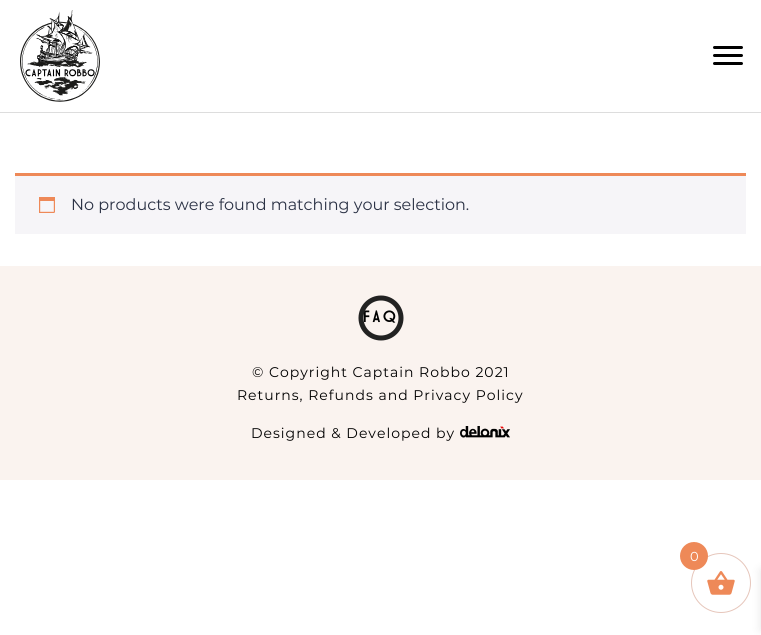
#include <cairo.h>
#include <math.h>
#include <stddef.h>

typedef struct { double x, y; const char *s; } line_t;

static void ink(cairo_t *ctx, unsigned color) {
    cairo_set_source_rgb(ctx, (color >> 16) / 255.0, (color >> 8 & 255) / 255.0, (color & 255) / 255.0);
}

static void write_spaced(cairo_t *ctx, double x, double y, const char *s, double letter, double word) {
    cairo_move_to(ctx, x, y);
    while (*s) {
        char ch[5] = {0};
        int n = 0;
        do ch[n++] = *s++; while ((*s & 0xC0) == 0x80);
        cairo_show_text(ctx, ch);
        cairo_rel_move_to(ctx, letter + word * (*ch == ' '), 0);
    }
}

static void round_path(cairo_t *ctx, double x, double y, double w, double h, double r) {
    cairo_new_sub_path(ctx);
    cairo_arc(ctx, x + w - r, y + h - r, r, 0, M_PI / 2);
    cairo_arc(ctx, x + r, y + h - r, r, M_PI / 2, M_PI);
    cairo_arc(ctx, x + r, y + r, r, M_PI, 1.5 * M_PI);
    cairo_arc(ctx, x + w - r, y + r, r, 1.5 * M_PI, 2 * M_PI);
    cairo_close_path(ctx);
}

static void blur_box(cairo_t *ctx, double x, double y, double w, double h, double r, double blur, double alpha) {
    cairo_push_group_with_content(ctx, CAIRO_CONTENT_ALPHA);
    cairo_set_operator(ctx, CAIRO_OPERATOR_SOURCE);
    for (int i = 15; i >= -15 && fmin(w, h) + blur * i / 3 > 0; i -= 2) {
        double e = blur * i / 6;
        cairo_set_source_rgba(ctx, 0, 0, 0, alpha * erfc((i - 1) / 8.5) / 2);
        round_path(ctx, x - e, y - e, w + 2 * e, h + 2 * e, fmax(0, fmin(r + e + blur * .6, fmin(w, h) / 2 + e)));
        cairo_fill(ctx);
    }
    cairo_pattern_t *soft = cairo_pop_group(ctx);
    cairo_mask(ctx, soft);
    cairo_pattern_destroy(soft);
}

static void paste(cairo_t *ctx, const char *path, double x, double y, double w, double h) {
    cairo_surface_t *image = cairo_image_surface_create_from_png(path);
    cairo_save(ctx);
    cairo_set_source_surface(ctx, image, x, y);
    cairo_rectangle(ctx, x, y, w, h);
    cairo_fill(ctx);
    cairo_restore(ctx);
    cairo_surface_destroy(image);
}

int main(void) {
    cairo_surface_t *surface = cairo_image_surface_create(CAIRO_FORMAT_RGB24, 761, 635);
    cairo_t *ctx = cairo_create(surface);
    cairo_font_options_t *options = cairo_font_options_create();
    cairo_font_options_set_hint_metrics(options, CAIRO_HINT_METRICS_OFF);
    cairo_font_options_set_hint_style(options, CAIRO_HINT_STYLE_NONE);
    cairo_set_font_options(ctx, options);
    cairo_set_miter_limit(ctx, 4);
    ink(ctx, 0xFFFFFF);
    cairo_paint(ctx);
    ink(ctx, 0xDDDDDD);
    cairo_rectangle(ctx, 0, 112, 761, 1);
    cairo_fill(ctx);
    paste(ctx, "media/1.png", 20, 10, 80, 92);
    ink(ctx, 0x000000);
    round_path(ctx, 713, 54, 30, 3, 1.5);
    cairo_fill(ctx);
    round_path(ctx, 713, 46, 30, 3, 1.5);
    cairo_fill(ctx);
    round_path(ctx, 713, 62, 30, 3, 1.5);
    cairo_fill(ctx);
    ink(ctx, 0xF6F5F8);
    cairo_rectangle(ctx, 15, 176, 731, 58);
    cairo_fill(ctx);
    ink(ctx, 0xEE8958);
    cairo_rectangle(ctx, 15, 173, 731, 3);
    cairo_fill(ctx);
    paste(ctx, "media/2.png", 39, 197, 16, 16);
    cairo_select_font_face(ctx, "Montserrat", CAIRO_FONT_SLANT_NORMAL, CAIRO_FONT_WEIGHT_NORMAL);
    cairo_set_font_size(ctx, 16);
    ink(ctx, 0x2B3245);
    cairo_move_to(ctx, 71, 210);
    cairo_show_text(ctx, "No products were found matching your selection.");
    ink(ctx, 0xFAF3EF);
    cairo_rectangle(ctx, 0, 266, 761, 214);
    cairo_fill(ctx);
    cairo_select_font_face(ctx, "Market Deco", CAIRO_FONT_SLANT_NORMAL, CAIRO_FONT_WEIGHT_NORMAL);
    ink(ctx, 0x000000);
    write_spaced(ctx, 363, 322, "FAQ", 1.5, 0);
    cairo_select_font_face(ctx, "Montserrat", CAIRO_FONT_SLANT_NORMAL, CAIRO_FONT_WEIGHT_NORMAL);
    cairo_set_font_size(ctx, 14);
    {
        static const line_t items[] = {
            {252, 377, "© Copyright Captain Robbo 2021"},
            {237, 400, "Returns, Refunds and Privacy Policy"},
            {251, 438, "Designed & Developed by"},
        };
        for (size_t i = 0; i < sizeof items / sizeof *items; i++) {
            write_spaced(ctx, items[i].x, items[i].y, items[i].s, 1, 0);
        }
    }
    paste(ctx, "media/3.png", 460, 426, 50, 12);
    cairo_arc(ctx, 381, 318, 20, 0, 2 * M_PI);
    ink(ctx, 0x222222);
    cairo_set_line_width(ctx, 5);
    cairo_stroke(ctx);
    ink(ctx, 0x000000);
    blur_box(ctx, 761, 570, 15, 60, 0, 5, 0.1);
    cairo_arc(ctx, 721, 583, 29.5, 0, 2 * M_PI);
    ink(ctx, 0xE6C6BB);
    cairo_set_line_width(ctx, 1);
    cairo_stroke(ctx);
    ink(ctx, 0xEE8958);
    cairo_arc(ctx, 694, 556, 14, 0, 2 * M_PI);
    cairo_fill(ctx);
    cairo_set_font_size(ctx, 13);
    ink(ctx, 0xFFFFFF);
    cairo_move_to(ctx, 690, 561);
    cairo_show_text(ctx, "0");
    paste(ctx, "media/4.png", 707, 571, 28, 24);
    cairo_surface_write_to_png(surface, "image.png");
    cairo_font_options_destroy(options);
    cairo_destroy(ctx);
    cairo_surface_destroy(surface);
    return 0;
}
